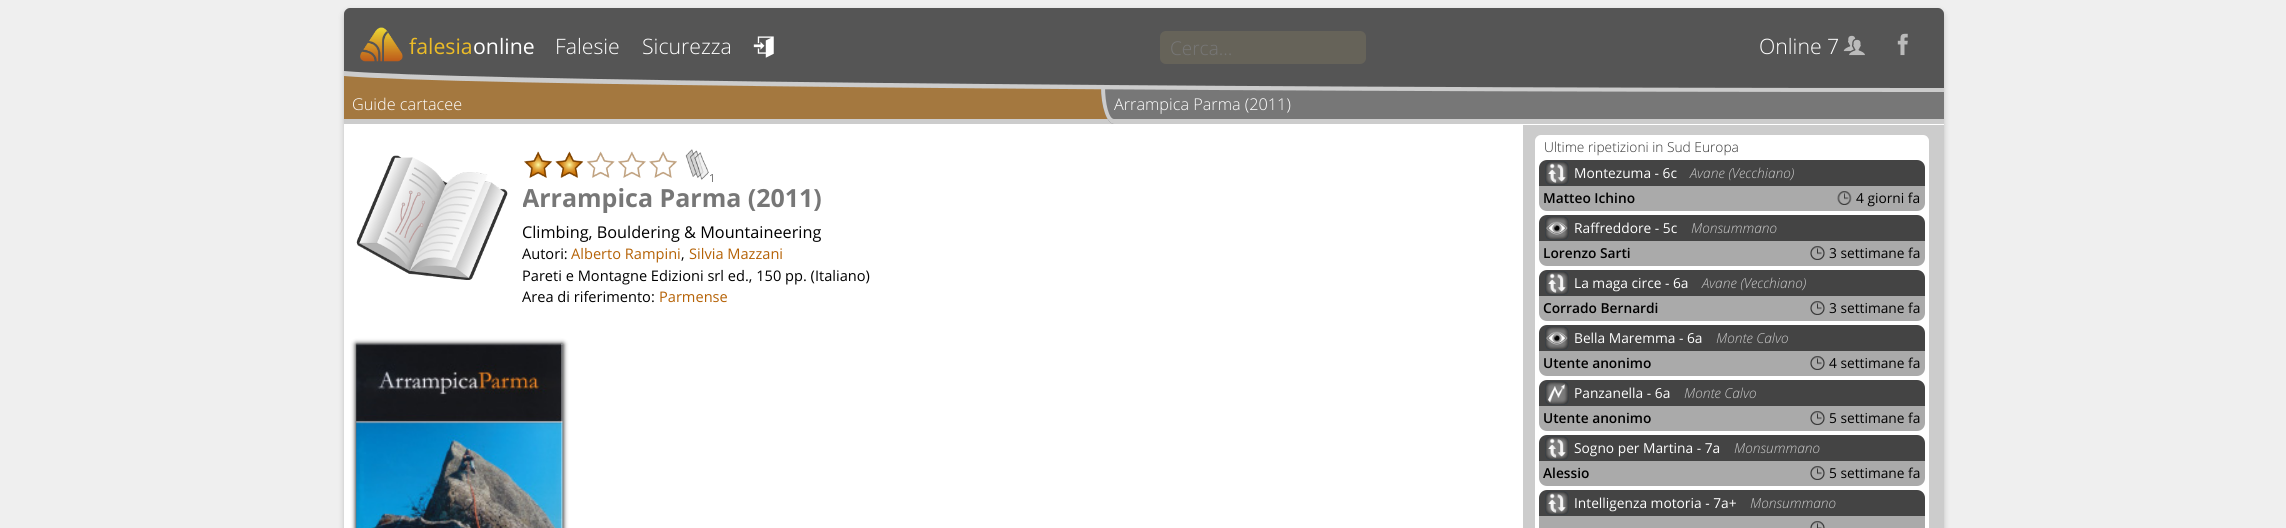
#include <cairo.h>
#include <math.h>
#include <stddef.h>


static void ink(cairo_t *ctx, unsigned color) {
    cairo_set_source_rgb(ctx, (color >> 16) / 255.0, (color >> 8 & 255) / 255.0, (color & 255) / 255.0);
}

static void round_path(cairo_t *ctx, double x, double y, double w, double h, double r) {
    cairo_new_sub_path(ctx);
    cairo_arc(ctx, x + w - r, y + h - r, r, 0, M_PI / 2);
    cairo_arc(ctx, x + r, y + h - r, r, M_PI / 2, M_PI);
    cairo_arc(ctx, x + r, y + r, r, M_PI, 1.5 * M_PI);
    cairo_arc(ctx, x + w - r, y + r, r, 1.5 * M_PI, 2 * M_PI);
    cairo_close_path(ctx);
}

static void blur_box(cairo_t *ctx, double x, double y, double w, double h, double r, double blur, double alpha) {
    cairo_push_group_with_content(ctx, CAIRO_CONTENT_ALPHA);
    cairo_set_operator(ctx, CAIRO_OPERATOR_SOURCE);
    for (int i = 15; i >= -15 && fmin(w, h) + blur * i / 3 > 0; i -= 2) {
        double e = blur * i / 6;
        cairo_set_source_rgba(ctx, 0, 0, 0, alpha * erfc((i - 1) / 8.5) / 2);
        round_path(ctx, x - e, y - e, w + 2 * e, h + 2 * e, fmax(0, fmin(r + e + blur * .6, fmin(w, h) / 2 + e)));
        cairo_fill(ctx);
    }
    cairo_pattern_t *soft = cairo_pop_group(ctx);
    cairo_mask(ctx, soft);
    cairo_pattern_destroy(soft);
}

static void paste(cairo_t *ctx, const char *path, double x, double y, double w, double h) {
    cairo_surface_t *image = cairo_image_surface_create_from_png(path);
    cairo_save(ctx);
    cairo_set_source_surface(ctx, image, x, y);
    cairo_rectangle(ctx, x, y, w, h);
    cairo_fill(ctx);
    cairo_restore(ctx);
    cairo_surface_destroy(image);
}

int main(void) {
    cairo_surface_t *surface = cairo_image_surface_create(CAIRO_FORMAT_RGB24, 2286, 528);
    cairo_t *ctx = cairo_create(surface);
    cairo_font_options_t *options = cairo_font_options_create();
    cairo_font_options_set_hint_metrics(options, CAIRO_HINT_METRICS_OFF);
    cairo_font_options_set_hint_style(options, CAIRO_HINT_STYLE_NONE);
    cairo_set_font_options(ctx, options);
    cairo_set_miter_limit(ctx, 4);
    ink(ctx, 0xEFEFEF);
    cairo_paint(ctx);
    ink(ctx, 0x000000);
    blur_box(ctx, 344, 11, 1600, 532, 6, 3, 0.2);
    ink(ctx, 0xFFFFFF);
    round_path(ctx, 344, 8, 1600, 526, 6);
    cairo_fill(ctx);
    ink(ctx, 0xCCCCCC);
    cairo_new_path(ctx);
    cairo_move_to(ctx, 350, 8);
    cairo_line_to(ctx, 1938, 8);
    cairo_curve_to(ctx, 1941.5, 8, 1944, 10.5, 1944, 14);
    cairo_line_to(ctx, 1944, 124);
    cairo_line_to(ctx, 344, 124);
    cairo_line_to(ctx, 344, 14);
    cairo_curve_to(ctx, 344, 10.5, 346.5, 8, 350, 8);
    cairo_close_path(ctx);
    cairo_fill(ctx);
    ink(ctx, 0xA4783F);
    cairo_rectangle(ctx, 344, 76, 764, 43);
    cairo_fill(ctx);
    ink(ctx, 0x777777);
    cairo_new_path(ctx);
    cairo_move_to(ctx, 1101, 72);
    cairo_line_to(ctx, 1944, 72);
    cairo_line_to(ctx, 1944, 124);
    cairo_line_to(ctx, 1114, 124);
    cairo_curve_to(ctx, 1107, 124, 1101, 107, 1101, 86);
    cairo_close_path(ctx);
    cairo_fill(ctx);
    ink(ctx, 0xCCCCCC);
    cairo_set_fill_rule(ctx, CAIRO_FILL_RULE_EVEN_ODD);
    cairo_new_path(ctx);
    cairo_move_to(ctx, 1101, 72);
    cairo_line_to(ctx, 1944, 72);
    cairo_line_to(ctx, 1944, 124);
    cairo_line_to(ctx, 1114, 124);
    cairo_curve_to(ctx, 1107, 124, 1101, 107, 1101, 86);
    cairo_close_path(ctx);
    cairo_move_to(ctx, 1105, 72);
    cairo_line_to(ctx, 1944, 72);
    cairo_line_to(ctx, 1944, 119);
    cairo_line_to(ctx, 1114, 119);
    cairo_curve_to(ctx, 1109, 119, 1105, 104, 1105, 86);
    cairo_close_path(ctx);
    cairo_fill(ctx);
    cairo_set_fill_rule(ctx, CAIRO_FILL_RULE_WINDING);
    cairo_new_path(ctx);
    cairo_move_to(ctx, 350, 8);
    cairo_curve_to(ctx, 347, 8, 344, 11, 344, 14);
    cairo_line_to(ctx, 344, 76);
    cairo_curve_to(ctx, 445, 85, 1123, 92, 1944, 92);
    cairo_line_to(ctx, 1944, 14);
    cairo_curve_to(ctx, 1944, 11, 1941, 8, 1938, 8);
    cairo_close_path(ctx);
    cairo_fill(ctx);
    ink(ctx, 0x555555);
    cairo_new_path(ctx);
    cairo_move_to(ctx, 350, 8);
    cairo_curve_to(ctx, 347, 8, 344, 11, 344, 14);
    cairo_line_to(ctx, 344, 71);
    cairo_curve_to(ctx, 445, 80, 1123, 88, 1944, 88);
    cairo_line_to(ctx, 1944, 14);
    cairo_curve_to(ctx, 1944, 11, 1941, 8, 1938, 8);
    cairo_close_path(ctx);
    cairo_fill(ctx);
    paste(ctx, "media/1.png", 360, 27, 43, 35);
    cairo_select_font_face(ctx, "Open Sans", CAIRO_FONT_SLANT_NORMAL, CAIRO_FONT_WEIGHT_NORMAL);
    cairo_set_font_size(ctx, 21.25);
    ink(ctx, 0xECBC27);
    cairo_move_to(ctx, 409, 54);
    cairo_show_text(ctx, "falesia");
    ink(ctx, 0xFFFFFF);
    cairo_move_to(ctx, 473, 54);
    cairo_show_text(ctx, "online");
    cairo_select_font_face(ctx, "Open Sans Light", CAIRO_FONT_SLANT_NORMAL, CAIRO_FONT_WEIGHT_NORMAL);
    cairo_move_to(ctx, 555, 54);
    cairo_show_text(ctx, "Falesie");
    cairo_move_to(ctx, 642, 54);
    cairo_show_text(ctx, "Sicurezza");
    paste(ctx, "media/2.png", 753, 36, 21, 22);
    ink(ctx, 0x666359);
    round_path(ctx, 1160, 31, 206, 33, 6);
    cairo_fill(ctx);
    cairo_set_font_size(ctx, 19);
    ink(ctx, 0x777777);
    cairo_move_to(ctx, 1170, 55);
    cairo_show_text(ctx, "Cerca…");
    cairo_set_font_size(ctx, 21.25);
    ink(ctx, 0xFFFFFF);
    cairo_move_to(ctx, 1759, 54);
    cairo_show_text(ctx, "Online 7");
    paste(ctx, "media/3.png", 1843, 35, 22, 21);
    paste(ctx, "media/4.png", 1897, 33, 11, 23);
    cairo_set_font_size(ctx, 16.25);
    cairo_move_to(ctx, 352, 110);
    cairo_show_text(ctx, "Guide cartacee");
    cairo_move_to(ctx, 1114, 110);
    cairo_show_text(ctx, "Arrampica Parma (2011)");
    paste(ctx, "media/5.png", 356, 155, 152, 125);
    paste(ctx, "media/6.png", 524, 151, 29, 27);
    paste(ctx, "media/7.png", 555, 151, 29, 27);
    paste(ctx, "media/8.png", 586, 151, 29, 27);
    paste(ctx, "media/9.png", 618, 151, 28, 27);
    paste(ctx, "media/10.png", 649, 151, 28, 27);
    paste(ctx, "media/11.png", 685, 149, 24, 31);
    cairo_set_font_size(ctx, 11);
    ink(ctx, 0x000000);
    cairo_move_to(ctx, 709, 182);
    cairo_show_text(ctx, "1");
    cairo_save(ctx);
    cairo_rectangle(ctx, 523, 186, 987, 29);
    cairo_clip(ctx);
    cairo_select_font_face(ctx, "Open Sans", CAIRO_FONT_SLANT_NORMAL, CAIRO_FONT_WEIGHT_BOLD);
    cairo_set_font_size(ctx, 25);
    ink(ctx, 0x777777);
    cairo_move_to(ctx, 522, 207);
    cairo_show_text(ctx, "Arrampica Parma (2011)");
    cairo_restore(ctx);
    cairo_select_font_face(ctx, "Open Sans", CAIRO_FONT_SLANT_NORMAL, CAIRO_FONT_WEIGHT_NORMAL);
    cairo_set_font_size(ctx, 16.25);
    cairo_move_to(ctx, 522, 238);
    cairo_show_text(ctx, "Climbing, Bouldering & Mountaineering");
    cairo_set_font_size(ctx, 14.6);
    cairo_move_to(ctx, 522, 259);
    cairo_show_text(ctx, "Autori:");
    ink(ctx, 0xB56206);
    cairo_move_to(ctx, 571, 259);
    cairo_show_text(ctx, "Alberto Rampini");
    ink(ctx, 0x000000);
    cairo_move_to(ctx, 681, 259);
    cairo_show_text(ctx, ",");
    ink(ctx, 0xB56206);
    cairo_move_to(ctx, 689, 259);
    cairo_show_text(ctx, "Silvia Mazzani");
    ink(ctx, 0x000000);
    cairo_move_to(ctx, 522, 281);
    cairo_show_text(ctx, "Pareti e Montagne Edizioni srl ed., 150 pp. (Italiano)");
    cairo_move_to(ctx, 522, 302);
    cairo_show_text(ctx, "Area di riferimento:");
    ink(ctx, 0xB56206);
    cairo_move_to(ctx, 659, 302);
    cairo_show_text(ctx, "Parmense");
    ink(ctx, 0x000000);
    blur_box(ctx, 356, 344, 207, 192, 0, 2.5, 1);
    paste(ctx, "media/12.png", 356, 343, 207, 185);
    ink(ctx, 0xCCCCCC);
    cairo_rectangle(ctx, 1523, 125, 421, 403);
    cairo_fill(ctx);
    ink(ctx, 0xFFFFFF);
    round_path(ctx, 1537, 137, 390, 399, 4);
    cairo_fill_preserve(ctx);
    cairo_set_line_width(ctx, 4);
    cairo_stroke(ctx);
    cairo_select_font_face(ctx, "Open Sans Light", CAIRO_FONT_SLANT_NORMAL, CAIRO_FONT_WEIGHT_NORMAL);
    cairo_set_font_size(ctx, 13.75);
    ink(ctx, 0x333333);
    cairo_move_to(ctx, 1544, 152);
    cairo_show_text(ctx, "Ultime ripetizioni in Sud Europa");
    ink(ctx, 0x444444);
    cairo_new_path(ctx);
    cairo_move_to(ctx, 1547, 160);
    cairo_line_to(ctx, 1917, 160);
    cairo_curve_to(ctx, 1921.5, 160, 1925, 163.5, 1925, 168);
    cairo_line_to(ctx, 1925, 186);
    cairo_line_to(ctx, 1539, 186);
    cairo_line_to(ctx, 1539, 168);
    cairo_curve_to(ctx, 1539, 163.5, 1542.5, 160, 1547, 160);
    cairo_close_path(ctx);
    cairo_fill(ctx);
    paste(ctx, "media/13.png", 1545, 161, 24, 24);
    cairo_select_font_face(ctx, "Open Sans", CAIRO_FONT_SLANT_NORMAL, CAIRO_FONT_WEIGHT_NORMAL);
    ink(ctx, 0xFFFFFF);
    cairo_move_to(ctx, 1574, 178);
    cairo_show_text(ctx, "Montezuma - 6c");
    cairo_select_font_face(ctx, "Open Sans Light", CAIRO_FONT_SLANT_ITALIC, CAIRO_FONT_WEIGHT_NORMAL);
    ink(ctx, 0xCCCCCC);
    cairo_move_to(ctx, 1690, 178);
    cairo_show_text(ctx, "Avane (Vecchiano)");
    ink(ctx, 0xAAAAAA);
    cairo_new_path(ctx);
    cairo_move_to(ctx, 1539, 186);
    cairo_line_to(ctx, 1925, 186);
    cairo_line_to(ctx, 1925, 203);
    cairo_curve_to(ctx, 1925, 207.5, 1921.5, 211, 1917, 211);
    cairo_line_to(ctx, 1547, 211);
    cairo_curve_to(ctx, 1542.5, 211, 1539, 207.5, 1539, 203);
    cairo_close_path(ctx);
    cairo_fill(ctx);
    cairo_select_font_face(ctx, "Open Sans SemiBold", CAIRO_FONT_SLANT_NORMAL, CAIRO_FONT_WEIGHT_NORMAL);
    ink(ctx, 0x000000);
    cairo_move_to(ctx, 1543, 203);
    cairo_show_text(ctx, "Matteo Ichino");
    paste(ctx, "media/14.png", 1837, 191, 15, 14);
    cairo_select_font_face(ctx, "Open Sans", CAIRO_FONT_SLANT_NORMAL, CAIRO_FONT_WEIGHT_NORMAL);
    cairo_move_to(ctx, 1856, 203);
    cairo_show_text(ctx, "4 giorni fa");
    ink(ctx, 0x444444);
    cairo_new_path(ctx);
    cairo_move_to(ctx, 1547, 215);
    cairo_line_to(ctx, 1917, 215);
    cairo_curve_to(ctx, 1921.5, 215, 1925, 218.5, 1925, 223);
    cairo_line_to(ctx, 1925, 241);
    cairo_line_to(ctx, 1539, 241);
    cairo_line_to(ctx, 1539, 223);
    cairo_curve_to(ctx, 1539, 218.5, 1542.5, 215, 1547, 215);
    cairo_close_path(ctx);
    cairo_fill(ctx);
    paste(ctx, "media/15.png", 1545, 216, 24, 24);
    ink(ctx, 0xFFFFFF);
    cairo_move_to(ctx, 1574, 233);
    cairo_show_text(ctx, "Raffreddore - 5c");
    cairo_select_font_face(ctx, "Open Sans Light", CAIRO_FONT_SLANT_ITALIC, CAIRO_FONT_WEIGHT_NORMAL);
    ink(ctx, 0xCCCCCC);
    cairo_move_to(ctx, 1691, 233);
    cairo_show_text(ctx, "Monsummano");
    ink(ctx, 0xAAAAAA);
    cairo_new_path(ctx);
    cairo_move_to(ctx, 1539, 241);
    cairo_line_to(ctx, 1925, 241);
    cairo_line_to(ctx, 1925, 258);
    cairo_curve_to(ctx, 1925, 262.5, 1921.5, 266, 1917, 266);
    cairo_line_to(ctx, 1547, 266);
    cairo_curve_to(ctx, 1542.5, 266, 1539, 262.5, 1539, 258);
    cairo_close_path(ctx);
    cairo_fill(ctx);
    cairo_select_font_face(ctx, "Open Sans SemiBold", CAIRO_FONT_SLANT_NORMAL, CAIRO_FONT_WEIGHT_NORMAL);
    ink(ctx, 0x000000);
    cairo_move_to(ctx, 1543, 258);
    cairo_show_text(ctx, "Lorenzo Sarti");
    paste(ctx, "media/16.png", 1810, 246, 15, 14);
    cairo_select_font_face(ctx, "Open Sans", CAIRO_FONT_SLANT_NORMAL, CAIRO_FONT_WEIGHT_NORMAL);
    cairo_move_to(ctx, 1829, 258);
    cairo_show_text(ctx, "3 settimane fa");
    ink(ctx, 0x444444);
    cairo_new_path(ctx);
    cairo_move_to(ctx, 1547, 270);
    cairo_line_to(ctx, 1917, 270);
    cairo_curve_to(ctx, 1921.5, 270, 1925, 273.5, 1925, 278);
    cairo_line_to(ctx, 1925, 296);
    cairo_line_to(ctx, 1539, 296);
    cairo_line_to(ctx, 1539, 278);
    cairo_curve_to(ctx, 1539, 273.5, 1542.5, 270, 1547, 270);
    cairo_close_path(ctx);
    cairo_fill(ctx);
    paste(ctx, "media/13.png", 1545, 271, 24, 24);
    ink(ctx, 0xFFFFFF);
    cairo_move_to(ctx, 1574, 288);
    cairo_show_text(ctx, "La maga circe - 6a");
    cairo_select_font_face(ctx, "Open Sans Light", CAIRO_FONT_SLANT_ITALIC, CAIRO_FONT_WEIGHT_NORMAL);
    ink(ctx, 0xCCCCCC);
    cairo_move_to(ctx, 1702, 288);
    cairo_show_text(ctx, "Avane (Vecchiano)");
    ink(ctx, 0xAAAAAA);
    cairo_new_path(ctx);
    cairo_move_to(ctx, 1539, 296);
    cairo_line_to(ctx, 1925, 296);
    cairo_line_to(ctx, 1925, 313);
    cairo_curve_to(ctx, 1925, 317.5, 1921.5, 321, 1917, 321);
    cairo_line_to(ctx, 1547, 321);
    cairo_curve_to(ctx, 1542.5, 321, 1539, 317.5, 1539, 313);
    cairo_close_path(ctx);
    cairo_fill(ctx);
    cairo_select_font_face(ctx, "Open Sans SemiBold", CAIRO_FONT_SLANT_NORMAL, CAIRO_FONT_WEIGHT_NORMAL);
    ink(ctx, 0x000000);
    cairo_move_to(ctx, 1543, 313);
    cairo_show_text(ctx, "Corrado Bernardi");
    paste(ctx, "media/16.png", 1810, 301, 15, 14);
    cairo_select_font_face(ctx, "Open Sans", CAIRO_FONT_SLANT_NORMAL, CAIRO_FONT_WEIGHT_NORMAL);
    cairo_move_to(ctx, 1829, 313);
    cairo_show_text(ctx, "3 settimane fa");
    ink(ctx, 0x444444);
    cairo_new_path(ctx);
    cairo_move_to(ctx, 1547, 325);
    cairo_line_to(ctx, 1917, 325);
    cairo_curve_to(ctx, 1921.5, 325, 1925, 328.5, 1925, 333);
    cairo_line_to(ctx, 1925, 351);
    cairo_line_to(ctx, 1539, 351);
    cairo_line_to(ctx, 1539, 333);
    cairo_curve_to(ctx, 1539, 328.5, 1542.5, 325, 1547, 325);
    cairo_close_path(ctx);
    cairo_fill(ctx);
    paste(ctx, "media/15.png", 1545, 326, 24, 24);
    ink(ctx, 0xFFFFFF);
    cairo_move_to(ctx, 1574, 343);
    cairo_show_text(ctx, "Bella Maremma - 6a");
    cairo_select_font_face(ctx, "Open Sans Light", CAIRO_FONT_SLANT_ITALIC, CAIRO_FONT_WEIGHT_NORMAL);
    ink(ctx, 0xCCCCCC);
    cairo_move_to(ctx, 1716, 343);
    cairo_show_text(ctx, "Monte Calvo");
    ink(ctx, 0xAAAAAA);
    cairo_new_path(ctx);
    cairo_move_to(ctx, 1539, 351);
    cairo_line_to(ctx, 1925, 351);
    cairo_line_to(ctx, 1925, 368);
    cairo_curve_to(ctx, 1925, 372.5, 1921.5, 376, 1917, 376);
    cairo_line_to(ctx, 1547, 376);
    cairo_curve_to(ctx, 1542.5, 376, 1539, 372.5, 1539, 368);
    cairo_close_path(ctx);
    cairo_fill(ctx);
    cairo_select_font_face(ctx, "Open Sans SemiBold", CAIRO_FONT_SLANT_NORMAL, CAIRO_FONT_WEIGHT_NORMAL);
    ink(ctx, 0x000000);
    cairo_move_to(ctx, 1543, 368);
    cairo_show_text(ctx, "Utente anonimo");
    paste(ctx, "media/16.png", 1810, 356, 15, 14);
    cairo_select_font_face(ctx, "Open Sans", CAIRO_FONT_SLANT_NORMAL, CAIRO_FONT_WEIGHT_NORMAL);
    cairo_move_to(ctx, 1829, 368);
    cairo_show_text(ctx, "4 settimane fa");
    ink(ctx, 0x444444);
    cairo_new_path(ctx);
    cairo_move_to(ctx, 1547, 380);
    cairo_line_to(ctx, 1917, 380);
    cairo_curve_to(ctx, 1921.5, 380, 1925, 383.5, 1925, 388);
    cairo_line_to(ctx, 1925, 406);
    cairo_line_to(ctx, 1539, 406);
    cairo_line_to(ctx, 1539, 388);
    cairo_curve_to(ctx, 1539, 383.5, 1542.5, 380, 1547, 380);
    cairo_close_path(ctx);
    cairo_fill(ctx);
    paste(ctx, "media/17.png", 1545, 381, 24, 24);
    ink(ctx, 0xFFFFFF);
    cairo_move_to(ctx, 1574, 398);
    cairo_show_text(ctx, "Panzanella - 6a");
    cairo_select_font_face(ctx, "Open Sans Light", CAIRO_FONT_SLANT_ITALIC, CAIRO_FONT_WEIGHT_NORMAL);
    ink(ctx, 0xCCCCCC);
    cairo_move_to(ctx, 1684, 398);
    cairo_show_text(ctx, "Monte Calvo");
    ink(ctx, 0xAAAAAA);
    cairo_new_path(ctx);
    cairo_move_to(ctx, 1539, 406);
    cairo_line_to(ctx, 1925, 406);
    cairo_line_to(ctx, 1925, 423);
    cairo_curve_to(ctx, 1925, 427.5, 1921.5, 431, 1917, 431);
    cairo_line_to(ctx, 1547, 431);
    cairo_curve_to(ctx, 1542.5, 431, 1539, 427.5, 1539, 423);
    cairo_close_path(ctx);
    cairo_fill(ctx);
    cairo_select_font_face(ctx, "Open Sans SemiBold", CAIRO_FONT_SLANT_NORMAL, CAIRO_FONT_WEIGHT_NORMAL);
    ink(ctx, 0x000000);
    cairo_move_to(ctx, 1543, 423);
    cairo_show_text(ctx, "Utente anonimo");
    paste(ctx, "media/16.png", 1810, 411, 15, 14);
    cairo_select_font_face(ctx, "Open Sans", CAIRO_FONT_SLANT_NORMAL, CAIRO_FONT_WEIGHT_NORMAL);
    cairo_move_to(ctx, 1829, 423);
    cairo_show_text(ctx, "5 settimane fa");
    ink(ctx, 0x444444);
    cairo_new_path(ctx);
    cairo_move_to(ctx, 1547, 435);
    cairo_line_to(ctx, 1917, 435);
    cairo_curve_to(ctx, 1921.5, 435, 1925, 438.5, 1925, 443);
    cairo_line_to(ctx, 1925, 461);
    cairo_line_to(ctx, 1539, 461);
    cairo_line_to(ctx, 1539, 443);
    cairo_curve_to(ctx, 1539, 438.5, 1542.5, 435, 1547, 435);
    cairo_close_path(ctx);
    cairo_fill(ctx);
    paste(ctx, "media/13.png", 1545, 436, 24, 24);
    ink(ctx, 0xFFFFFF);
    cairo_move_to(ctx, 1574, 453);
    cairo_show_text(ctx, "Sogno per Martina - 7a");
    cairo_select_font_face(ctx, "Open Sans Light", CAIRO_FONT_SLANT_ITALIC, CAIRO_FONT_WEIGHT_NORMAL);
    ink(ctx, 0xCCCCCC);
    cairo_move_to(ctx, 1734, 453);
    cairo_show_text(ctx, "Monsummano");
    ink(ctx, 0xAAAAAA);
    cairo_new_path(ctx);
    cairo_move_to(ctx, 1539, 461);
    cairo_line_to(ctx, 1925, 461);
    cairo_line_to(ctx, 1925, 478);
    cairo_curve_to(ctx, 1925, 482.5, 1921.5, 486, 1917, 486);
    cairo_line_to(ctx, 1547, 486);
    cairo_curve_to(ctx, 1542.5, 486, 1539, 482.5, 1539, 478);
    cairo_close_path(ctx);
    cairo_fill(ctx);
    cairo_select_font_face(ctx, "Open Sans SemiBold", CAIRO_FONT_SLANT_NORMAL, CAIRO_FONT_WEIGHT_NORMAL);
    ink(ctx, 0x000000);
    cairo_move_to(ctx, 1543, 478);
    cairo_show_text(ctx, "Alessio");
    paste(ctx, "media/16.png", 1810, 466, 15, 14);
    cairo_select_font_face(ctx, "Open Sans", CAIRO_FONT_SLANT_NORMAL, CAIRO_FONT_WEIGHT_NORMAL);
    cairo_move_to(ctx, 1829, 478);
    cairo_show_text(ctx, "5 settimane fa");
    ink(ctx, 0x444444);
    cairo_new_path(ctx);
    cairo_move_to(ctx, 1547, 490);
    cairo_line_to(ctx, 1917, 490);
    cairo_curve_to(ctx, 1921.5, 490, 1925, 493.5, 1925, 498);
    cairo_line_to(ctx, 1925, 516);
    cairo_line_to(ctx, 1539, 516);
    cairo_line_to(ctx, 1539, 498);
    cairo_curve_to(ctx, 1539, 493.5, 1542.5, 490, 1547, 490);
    cairo_close_path(ctx);
    cairo_fill(ctx);
    paste(ctx, "media/13.png", 1545, 491, 24, 24);
    ink(ctx, 0xFFFFFF);
    cairo_move_to(ctx, 1574, 508);
    cairo_show_text(ctx, "Intelligenza motoria - 7a+");
    cairo_select_font_face(ctx, "Open Sans Light", CAIRO_FONT_SLANT_ITALIC, CAIRO_FONT_WEIGHT_NORMAL);
    ink(ctx, 0xCCCCCC);
    cairo_move_to(ctx, 1750, 508);
    cairo_show_text(ctx, "Monsummano");
    ink(ctx, 0xAAAAAA);
    cairo_rectangle(ctx, 1539, 516, 386, 12);
    cairo_fill(ctx);
    paste(ctx, "media/18.png", 1810, 521, 15, 7);
    cairo_surface_write_to_png(surface, "image.png");
    cairo_font_options_destroy(options);
    cairo_destroy(ctx);
    cairo_surface_destroy(surface);
    return 0;
}
